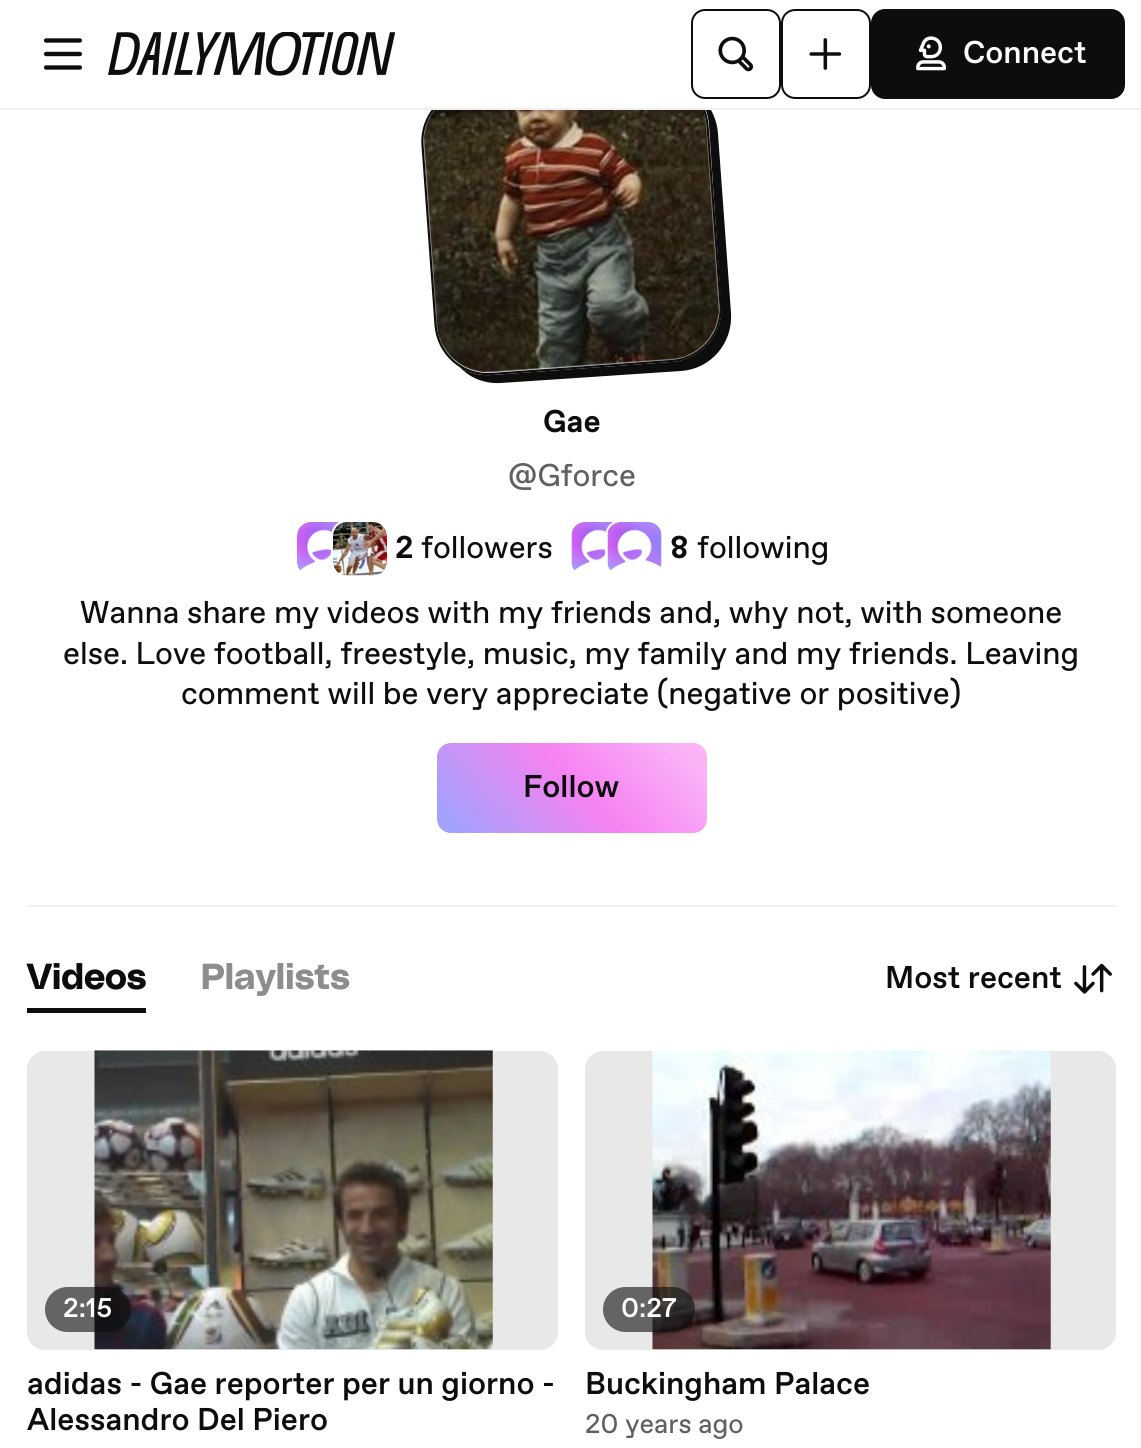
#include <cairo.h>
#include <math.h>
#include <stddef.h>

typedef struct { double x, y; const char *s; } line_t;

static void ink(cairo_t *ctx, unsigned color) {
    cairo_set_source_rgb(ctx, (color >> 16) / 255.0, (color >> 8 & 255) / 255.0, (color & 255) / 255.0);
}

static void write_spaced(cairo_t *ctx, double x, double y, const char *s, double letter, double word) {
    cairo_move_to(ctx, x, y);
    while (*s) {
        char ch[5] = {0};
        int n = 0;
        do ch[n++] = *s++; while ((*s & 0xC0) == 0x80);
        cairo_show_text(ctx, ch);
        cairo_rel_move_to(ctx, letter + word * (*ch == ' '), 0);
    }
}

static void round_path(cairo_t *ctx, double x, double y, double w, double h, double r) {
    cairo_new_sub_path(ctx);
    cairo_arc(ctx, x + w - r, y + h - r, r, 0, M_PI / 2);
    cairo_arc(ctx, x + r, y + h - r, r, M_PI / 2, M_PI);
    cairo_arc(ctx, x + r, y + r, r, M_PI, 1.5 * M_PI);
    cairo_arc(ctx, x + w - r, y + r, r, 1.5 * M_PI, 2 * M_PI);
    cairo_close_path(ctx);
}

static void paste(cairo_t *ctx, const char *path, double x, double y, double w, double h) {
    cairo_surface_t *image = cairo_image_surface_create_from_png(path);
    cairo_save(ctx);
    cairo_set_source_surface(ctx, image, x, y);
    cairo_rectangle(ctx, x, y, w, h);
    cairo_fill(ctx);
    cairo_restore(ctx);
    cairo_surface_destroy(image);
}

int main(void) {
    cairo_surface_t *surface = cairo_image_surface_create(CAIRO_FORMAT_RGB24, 1141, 1448);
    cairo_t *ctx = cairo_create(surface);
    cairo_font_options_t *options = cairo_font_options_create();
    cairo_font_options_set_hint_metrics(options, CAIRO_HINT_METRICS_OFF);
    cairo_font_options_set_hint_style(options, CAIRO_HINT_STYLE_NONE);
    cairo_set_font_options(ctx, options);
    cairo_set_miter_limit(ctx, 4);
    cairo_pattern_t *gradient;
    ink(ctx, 0xFFFFFF);
    cairo_paint(ctx);
    ink(ctx, 0x0D0D0D);
    cairo_new_path(ctx);
    cairo_move_to(ctx, 459, 366);
    cairo_curve_to(ctx, 469, 378, 485, 384, 501, 383);
    cairo_line_to(ctx, 681, 371);
    cairo_curve_to(ctx, 711, 369, 733, 343, 731, 313);
    cairo_line_to(ctx, 718, 134);
    cairo_curve_to(ctx, 717, 117, 708, 101, 695, 92);
    cairo_curve_to(ctx, 703, 101, 708, 112, 709, 125);
    cairo_line_to(ctx, 721, 305);
    cairo_curve_to(ctx, 724, 334, 701, 360, 671, 362);
    cairo_line_to(ctx, 492, 375);
    cairo_curve_to(ctx, 480, 376, 468, 373, 459, 366);
    cairo_close_path(ctx);
    cairo_fill(ctx);
    cairo_new_path(ctx);
    cairo_move_to(ctx, 472, 89);
    cairo_line_to(ctx, 651.5, 76);
    cairo_curve_to(ctx, 680.5, 74, 705.5, 96, 707.5, 125.5);
    cairo_line_to(ctx, 720.5, 305);
    cairo_curve_to(ctx, 722.5, 334, 700.5, 359, 671, 361);
    cairo_line_to(ctx, 491.5, 374);
    cairo_curve_to(ctx, 462.5, 376, 437.5, 354, 435.5, 324.5);
    cairo_line_to(ctx, 422.5, 145);
    cairo_curve_to(ctx, 420.5, 116, 442.5, 91, 472, 89);
    cairo_close_path(ctx);
    cairo_set_line_width(ctx, 2.2);
    cairo_stroke(ctx);
    ink(ctx, 0xFFFFFF);
    cairo_rectangle(ctx, 433, 74, 277, 34);
    cairo_fill(ctx);
    ink(ctx, 0xF0F0F0);
    cairo_rectangle(ctx, 0, 108, 1141, 2);
    cairo_fill(ctx);
    paste(ctx, "media/1.png", 43, 38, 40, 32);
    paste(ctx, "media/2.png", 108, 32, 288, 44);
    round_path(ctx, 692, 10, 88, 88, 13);
    ink(ctx, 0x0D0D0D);
    cairo_set_line_width(ctx, 2);
    cairo_stroke(ctx);
    paste(ctx, "media/3.png", 718, 36, 35, 36);
    round_path(ctx, 782, 10, 88, 88, 13);
    cairo_stroke(ctx);
    paste(ctx, "media/4.png", 809, 38, 33, 32);
    round_path(ctx, 872, 10, 252, 88, 13);
    cairo_fill_preserve(ctx);
    cairo_stroke(ctx);
    paste(ctx, "media/5.png", 916, 36, 30, 35);
    cairo_select_font_face(ctx, "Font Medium", CAIRO_FONT_SLANT_NORMAL, CAIRO_FONT_WEIGHT_NORMAL);
    cairo_set_font_size(ctx, 31.5);
    ink(ctx, 0xFFFFFF);
    cairo_move_to(ctx, 963, 63);
    cairo_show_text(ctx, "Connect");
    ink(ctx, 0xF0F0F0);
    cairo_rectangle(ctx, 27, 905, 1089, 2);
    cairo_fill(ctx);
    paste(ctx, "media/6.png", 423, 110, 297, 263);
    cairo_select_font_face(ctx, "Font", CAIRO_FONT_SLANT_NORMAL, CAIRO_FONT_WEIGHT_BOLD);
    ink(ctx, 0x0D0D0D);
    cairo_move_to(ctx, 543, 432);
    cairo_show_text(ctx, "Gae");
    cairo_select_font_face(ctx, "Font", CAIRO_FONT_SLANT_NORMAL, CAIRO_FONT_WEIGHT_NORMAL);
    ink(ctx, 0x606060);
    cairo_move_to(ctx, 508, 486);
    cairo_show_text(ctx, "@Gforce");
    paste(ctx, "media/7.png", 297, 522, 44, 49);
    round_path(ctx, 296, 521, 56, 56, 15);
    ink(ctx, 0xFFFFFF);
    cairo_stroke(ctx);
    paste(ctx, "media/8.png", 333, 522, 54, 54);
    round_path(ctx, 332, 521, 56, 56, 15);
    cairo_stroke(ctx);
    cairo_select_font_face(ctx, "Font", CAIRO_FONT_SLANT_NORMAL, CAIRO_FONT_WEIGHT_BOLD);
    ink(ctx, 0x0D0D0D);
    cairo_move_to(ctx, 395, 558);
    cairo_show_text(ctx, "2");
    cairo_select_font_face(ctx, "Font", CAIRO_FONT_SLANT_NORMAL, CAIRO_FONT_WEIGHT_NORMAL);
    cairo_move_to(ctx, 421, 558);
    cairo_show_text(ctx, "followers");
    paste(ctx, "media/9.png", 571, 522, 46, 49);
    round_path(ctx, 570, 521, 57, 56, 15);
    ink(ctx, 0xFFFFFF);
    cairo_stroke(ctx);
    paste(ctx, "media/10.png", 607, 522, 55, 49);
    round_path(ctx, 606, 521, 57, 56, 15);
    cairo_stroke(ctx);
    cairo_select_font_face(ctx, "Font", CAIRO_FONT_SLANT_NORMAL, CAIRO_FONT_WEIGHT_BOLD);
    ink(ctx, 0x0D0D0D);
    cairo_move_to(ctx, 670, 558);
    cairo_show_text(ctx, "8");
    cairo_select_font_face(ctx, "Font", CAIRO_FONT_SLANT_NORMAL, CAIRO_FONT_WEIGHT_NORMAL);
    {
        static const line_t items[] = {
            {697, 558, "following"},
            {80, 623, "Wanna share my videos with my friends and, why not, with someone"},
            {63, 664, "else. Love football, freestyle, music, my family and my friends. Leaving"},
            {181, 704, "comment will be very appreciate (negative or positive)"},
        };
        for (size_t i = 0; i < sizeof items / sizeof *items; i++) {
            cairo_move_to(ctx, items[i].x, items[i].y);
            cairo_show_text(ctx, items[i].s);
        }
    }
    gradient = cairo_pattern_create_linear(668, 700, 475, 875);
    cairo_pattern_add_color_stop_rgba(gradient, 0.09, 0.98, 0.702, 0.969, 1);
    cairo_pattern_add_color_stop_rgba(gradient, 0.48, 0.965, 0.51, 0.949, 1);
    cairo_pattern_add_color_stop_rgba(gradient, 0.94, 0.635, 0.635, 0.984, 1);
    cairo_set_source(ctx, gradient);
    cairo_pattern_destroy(gradient);
    round_path(ctx, 437, 743, 270, 90, 14);
    cairo_fill(ctx);
    cairo_select_font_face(ctx, "Font Medium", CAIRO_FONT_SLANT_NORMAL, CAIRO_FONT_WEIGHT_NORMAL);
    ink(ctx, 0x0D0D0D);
    cairo_move_to(ctx, 523, 797);
    cairo_show_text(ctx, "Follow");
    cairo_rectangle(ctx, 27, 1008, 119, 5);
    cairo_fill(ctx);
    cairo_select_font_face(ctx, "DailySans", CAIRO_FONT_SLANT_NORMAL, CAIRO_FONT_WEIGHT_BOLD);
    cairo_set_font_size(ctx, 36);
    write_spaced(ctx, 27, 989, "Videos", 0.25, 0);
    ink(ctx, 0x8D8D8D);
    write_spaced(ctx, 201, 989, "Playlists", 0.25, 0);
    cairo_select_font_face(ctx, "Font Medium", CAIRO_FONT_SLANT_NORMAL, CAIRO_FONT_WEIGHT_NORMAL);
    cairo_set_font_size(ctx, 31.5);
    ink(ctx, 0x0D0D0D);
    cairo_move_to(ctx, 885, 988);
    cairo_show_text(ctx, "Most recent");
    paste(ctx, "media/11.png", 1074, 963, 38, 31);
    ink(ctx, 0xE8E8E8);
    round_path(ctx, 27, 1051, 531, 299, 18);
    cairo_fill(ctx);
    paste(ctx, "media/12.png", 94, 1050, 399, 300);
    cairo_set_source_rgba(ctx, 0.051, 0.051, 0.051, 0.6);
    round_path(ctx, 45, 1287, 86, 45, 22.5);
    cairo_fill(ctx);
    cairo_set_font_size(ctx, 27);
    ink(ctx, 0xFFFFFF);
    cairo_move_to(ctx, 63, 1317);
    cairo_show_text(ctx, "2:15");
    cairo_set_font_size(ctx, 31.5);
    ink(ctx, 0x0D0D0D);
    cairo_move_to(ctx, 27, 1394);
    cairo_show_text(ctx, "adidas - Gae reporter per un giorno -");
    cairo_move_to(ctx, 27, 1430);
    cairo_show_text(ctx, "Alessandro Del Piero");
    ink(ctx, 0xE8E8E8);
    round_path(ctx, 585, 1051, 531, 299, 18);
    cairo_fill(ctx);
    paste(ctx, "media/13.png", 652, 1050, 399, 300);
    cairo_set_source_rgba(ctx, 0.051, 0.051, 0.051, 0.6);
    round_path(ctx, 603, 1287, 92, 45, 22.5);
    cairo_fill(ctx);
    cairo_set_font_size(ctx, 27);
    ink(ctx, 0xFFFFFF);
    cairo_move_to(ctx, 621, 1317);
    cairo_show_text(ctx, "0:27");
    cairo_set_font_size(ctx, 31.5);
    ink(ctx, 0x0D0D0D);
    cairo_move_to(ctx, 585, 1394);
    cairo_show_text(ctx, "Buckingham Palace");
    cairo_select_font_face(ctx, "Font", CAIRO_FONT_SLANT_NORMAL, CAIRO_FONT_WEIGHT_NORMAL);
    cairo_set_font_size(ctx, 27);
    ink(ctx, 0x606060);
    cairo_move_to(ctx, 585, 1433);
    cairo_show_text(ctx, "20 years ago");
    cairo_surface_write_to_png(surface, "image.png");
    cairo_font_options_destroy(options);
    cairo_destroy(ctx);
    cairo_surface_destroy(surface);
    return 0;
}
